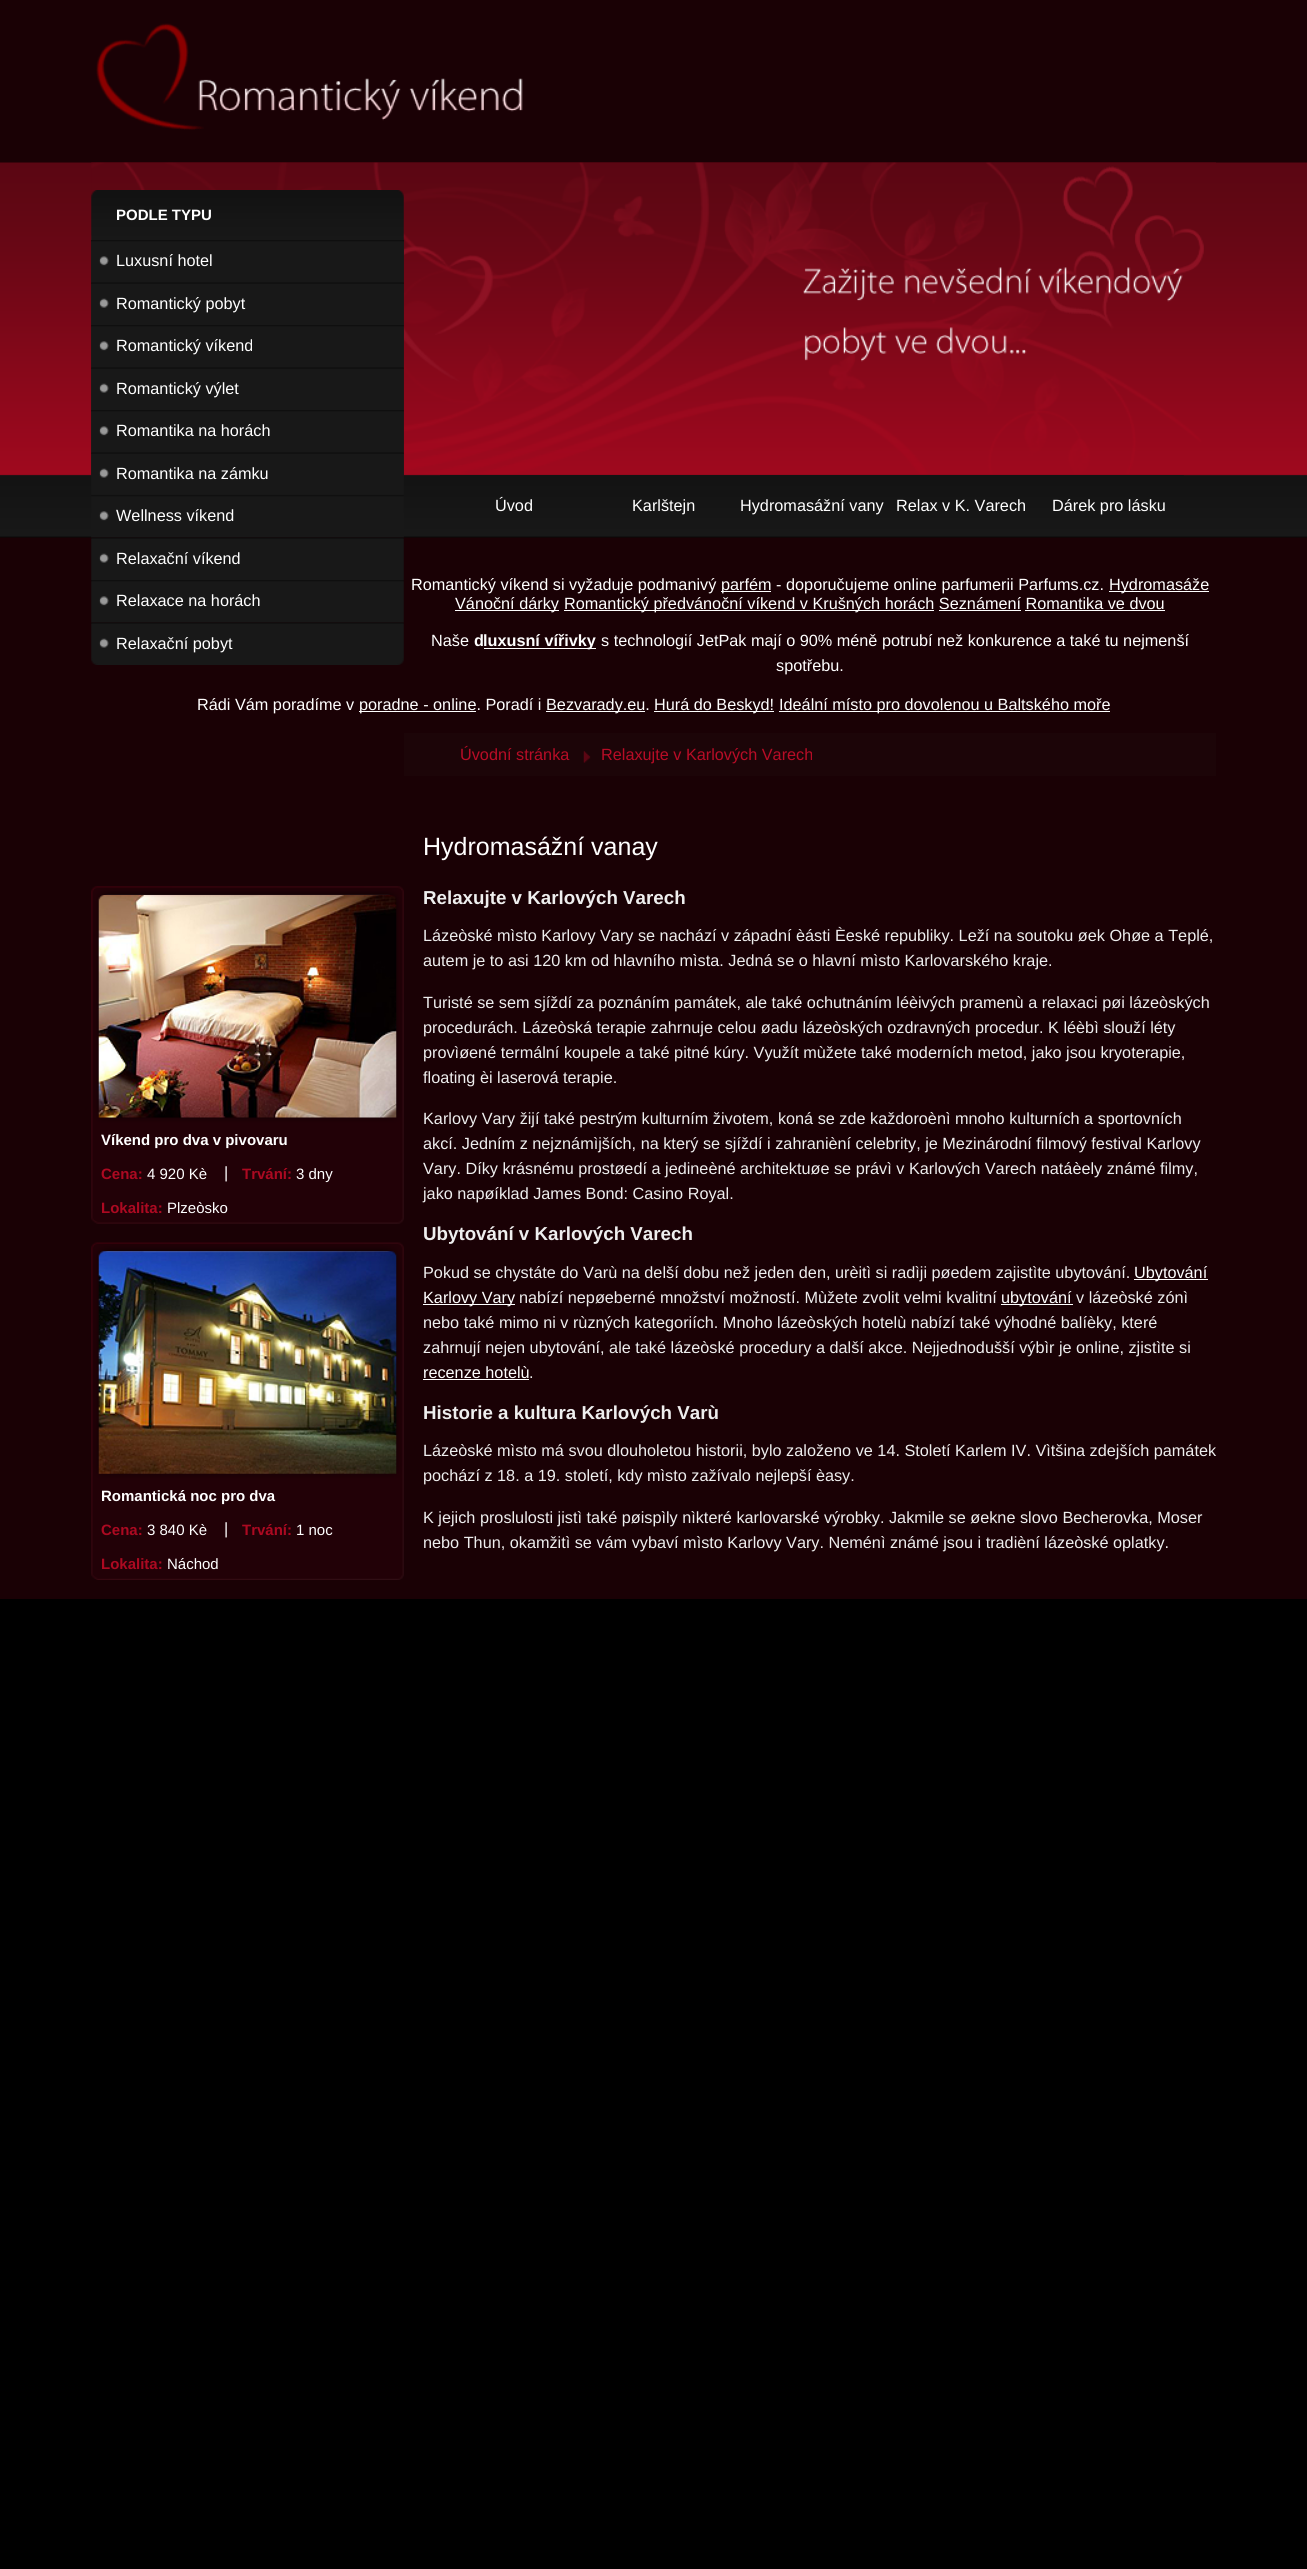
#include <cairo.h>
#include <math.h>
#include <stddef.h>

typedef struct { double x, y; const char *s; } line_t;

static void ink(cairo_t *ctx, unsigned color) {
    cairo_set_source_rgb(ctx, (color >> 16) / 255.0, (color >> 8 & 255) / 255.0, (color & 255) / 255.0);
}

static void paste(cairo_t *ctx, const char *path, double x, double y, double w, double h) {
    cairo_surface_t *image = cairo_image_surface_create_from_png(path);
    cairo_save(ctx);
    cairo_set_source_surface(ctx, image, x, y);
    cairo_rectangle(ctx, x, y, w, h);
    cairo_fill(ctx);
    cairo_restore(ctx);
    cairo_surface_destroy(image);
}

int main(void) {
    cairo_surface_t *surface = cairo_image_surface_create(CAIRO_FORMAT_RGB24, 1307, 2569);
    cairo_t *ctx = cairo_create(surface);
    cairo_font_options_t *options = cairo_font_options_create();
    cairo_font_options_set_hint_metrics(options, CAIRO_HINT_METRICS_OFF);
    cairo_font_options_set_hint_style(options, CAIRO_HINT_STYLE_NONE);
    cairo_set_font_options(ctx, options);
    cairo_set_miter_limit(ctx, 4);
    ink(ctx, 0x000000);
    cairo_paint(ctx);
    ink(ctx, 0x1A0105);
    cairo_rectangle(ctx, 0, 0, 1307, 163);
    cairo_fill(ctx);
    paste(ctx, "media/1.png", 96, 23, 427, 107);
    paste(ctx, "media/2.png", 0, 162, 1307, 376);
    paste(ctx, "media/3.png", 91, 162, 1125, 312);
    paste(ctx, "media/4.png", 91, 190, 313, 50);
    cairo_select_font_face(ctx, "Liberation Sans", CAIRO_FONT_SLANT_NORMAL, CAIRO_FONT_WEIGHT_BOLD);
    cairo_set_font_size(ctx, 15);
    ink(ctx, 0xFFFFFF);
    cairo_move_to(ctx, 116, 220);
    cairo_show_text(ctx, "PODLE TYPU");
    paste(ctx, "media/5.png", 91, 240, 313, 298);
    paste(ctx, "media/6.png", 91, 240, 313, 43);
    cairo_select_font_face(ctx, "Liberation Sans", CAIRO_FONT_SLANT_NORMAL, CAIRO_FONT_WEIGHT_NORMAL);
    cairo_set_font_size(ctx, 16.25);
    cairo_move_to(ctx, 116, 266);
    cairo_show_text(ctx, "Luxusní hotel");
    paste(ctx, "media/7.png", 91, 282, 313, 43);
    cairo_move_to(ctx, 116, 309);
    cairo_show_text(ctx, "Romantický pobyt");
    paste(ctx, "media/8.png", 91, 325, 313, 43);
    cairo_move_to(ctx, 116, 351);
    cairo_show_text(ctx, "Romantický víkend");
    paste(ctx, "media/9.png", 91, 367, 313, 43);
    cairo_move_to(ctx, 116, 394);
    cairo_show_text(ctx, "Romantický výlet");
    paste(ctx, "media/10.png", 91, 410, 313, 43);
    cairo_move_to(ctx, 116, 436);
    cairo_show_text(ctx, "Romantika na horách");
    paste(ctx, "media/11.png", 91, 452, 313, 23);
    cairo_move_to(ctx, 116, 479);
    cairo_show_text(ctx, "Romantika na zámku");
    paste(ctx, "media/12.png", 91, 513, 313, 25);
    cairo_move_to(ctx, 116, 521);
    cairo_show_text(ctx, "Wellness víkend");
    paste(ctx, "media/13.png", 440, 475, 744, 1);
    {
        static const line_t items[] = {
            {495, 511, "Úvod"},
            {632, 511, "Karlštejn"},
            {740, 511, "Hydromasážní vany"},
            {896, 511, "Relax v K. Varech"},
            {1052, 511, "Dárek pro lásku"},
        };
        for (size_t i = 0; i < sizeof items / sizeof *items; i++) {
            cairo_move_to(ctx, items[i].x, items[i].y);
            cairo_show_text(ctx, items[i].s);
        }
    }
    ink(ctx, 0x1A0105);
    cairo_rectangle(ctx, 0, 538, 1307, 1061);
    cairo_fill(ctx);
    cairo_set_source_rgba(ctx, 0.11, 0.016, 0.031, 0.5);
    cairo_rectangle(ctx, 0, 537, 1307, 1);
    cairo_fill(ctx);
    paste(ctx, "media/14.png", 91, 537, 313, 43);
    ink(ctx, 0xFFFFFF);
    cairo_move_to(ctx, 116, 564);
    cairo_show_text(ctx, "Relaxační víkend");
    paste(ctx, "media/15.png", 91, 580, 313, 43);
    cairo_move_to(ctx, 116, 606);
    cairo_show_text(ctx, "Relaxace na horách");
    paste(ctx, "media/16.png", 91, 622, 313, 43);
    cairo_move_to(ctx, 116, 649);
    cairo_show_text(ctx, "Relaxační pobyt");
    cairo_move_to(ctx, 411, 590);
    cairo_show_text(ctx, "Romantický víkend si vyžaduje podmanivý");
    cairo_rectangle(ctx, 721, 591, 50, 1);
    cairo_fill(ctx);
    cairo_move_to(ctx, 721, 590);
    cairo_show_text(ctx, "parfém - doporučujeme online parfumerii Parfums.cz.");
    cairo_rectangle(ctx, 1109, 591, 100, 1);
    cairo_fill(ctx);
    cairo_move_to(ctx, 1109, 590);
    cairo_show_text(ctx, "Hydromasáže");
    cairo_rectangle(ctx, 455, 610, 104, 1);
    cairo_fill(ctx);
    cairo_move_to(ctx, 455, 609);
    cairo_show_text(ctx, "Vánoční dárky");
    cairo_rectangle(ctx, 564, 610, 370, 1);
    cairo_fill(ctx);
    cairo_move_to(ctx, 564, 609);
    cairo_show_text(ctx, "Romantický předvánoční víkend v Krušných horách Seznámení Romantika ve dvou");
    cairo_rectangle(ctx, 939, 610, 82, 1);
    cairo_fill(ctx);
    cairo_rectangle(ctx, 1025, 610, 140, 1);
    cairo_fill(ctx);
    cairo_move_to(ctx, 431, 646);
    cairo_show_text(ctx, "Naše");
    cairo_select_font_face(ctx, "Liberation Sans", CAIRO_FONT_SLANT_NORMAL, CAIRO_FONT_WEIGHT_BOLD);
    cairo_move_to(ctx, 474, 646);
    cairo_show_text(ctx, "d");
    cairo_rectangle(ctx, 484, 648, 112, 1);
    cairo_fill(ctx);
    cairo_move_to(ctx, 483, 646);
    cairo_show_text(ctx, "luxusní vířivky");
    cairo_select_font_face(ctx, "Liberation Sans", CAIRO_FONT_SLANT_NORMAL, CAIRO_FONT_WEIGHT_NORMAL);
    {
        static const line_t items[] = {
            {601, 646, "s technologií JetPak mají o 90% méně potrubí než konkurence a také tu nejmenší"},
            {776, 671, "spotřebu."},
            {197, 710, "Rádi Vám poradíme v"},
        };
        for (size_t i = 0; i < sizeof items / sizeof *items; i++) {
            cairo_move_to(ctx, items[i].x, items[i].y);
            cairo_show_text(ctx, items[i].s);
        }
    }
    cairo_rectangle(ctx, 359, 711, 117, 1);
    cairo_fill(ctx);
    cairo_move_to(ctx, 359, 710);
    cairo_show_text(ctx, "poradne - online. Poradí i");
    cairo_rectangle(ctx, 546, 711, 99, 1);
    cairo_fill(ctx);
    cairo_move_to(ctx, 546, 710);
    cairo_show_text(ctx, "Bezvarady.eu.");
    cairo_rectangle(ctx, 654, 711, 120, 1);
    cairo_fill(ctx);
    cairo_move_to(ctx, 654, 710);
    cairo_show_text(ctx, "Hurá do Beskyd!");
    cairo_rectangle(ctx, 779, 711, 331, 1);
    cairo_fill(ctx);
    cairo_move_to(ctx, 779, 710);
    cairo_show_text(ctx, "Ideální místo pro dovolenou u Baltského moře");
    ink(ctx, 0x1C0508);
    cairo_rectangle(ctx, 404, 733, 812, 43);
    cairo_fill(ctx);
    ink(ctx, 0xB80C26);
    cairo_move_to(ctx, 460, 760);
    cairo_show_text(ctx, "Úvodní stránka");
    paste(ctx, "media/17.png", 583, 751, 8, 12);
    cairo_move_to(ctx, 601, 760);
    cairo_show_text(ctx, "Relaxujte v Karlových Varech");
    cairo_set_font_size(ctx, 25);
    ink(ctx, 0xFFFFFF);
    cairo_move_to(ctx, 423, 855);
    cairo_show_text(ctx, "Hydromasážní vanay");
    paste(ctx, "media/18.png", 91, 886, 313, 338);
    paste(ctx, "media/19.png", 98, 895, 299, 223);
    cairo_select_font_face(ctx, "Liberation Sans", CAIRO_FONT_SLANT_NORMAL, CAIRO_FONT_WEIGHT_BOLD);
    cairo_set_font_size(ctx, 15);
    cairo_move_to(ctx, 101, 1145);
    cairo_show_text(ctx, "Víkend pro dva v pivovaru");
    ink(ctx, 0xAC0921);
    cairo_move_to(ctx, 101, 1179);
    cairo_show_text(ctx, "Cena:");
    cairo_select_font_face(ctx, "Liberation Sans", CAIRO_FONT_SLANT_NORMAL, CAIRO_FONT_WEIGHT_NORMAL);
    ink(ctx, 0xFFFFFF);
    cairo_move_to(ctx, 147, 1179);
    cairo_show_text(ctx, "4 920 Kè");
    cairo_set_font_size(ctx, 16.25);
    cairo_move_to(ctx, 224, 1178);
    cairo_show_text(ctx, "|");
    cairo_select_font_face(ctx, "Liberation Sans", CAIRO_FONT_SLANT_NORMAL, CAIRO_FONT_WEIGHT_BOLD);
    cairo_set_font_size(ctx, 15);
    ink(ctx, 0xAC0921);
    cairo_move_to(ctx, 242, 1179);
    cairo_show_text(ctx, "Trvání:");
    cairo_select_font_face(ctx, "Liberation Sans", CAIRO_FONT_SLANT_NORMAL, CAIRO_FONT_WEIGHT_NORMAL);
    ink(ctx, 0xFFFFFF);
    cairo_move_to(ctx, 296, 1179);
    cairo_show_text(ctx, "3 dny");
    cairo_select_font_face(ctx, "Liberation Sans", CAIRO_FONT_SLANT_NORMAL, CAIRO_FONT_WEIGHT_BOLD);
    ink(ctx, 0xAC0921);
    cairo_move_to(ctx, 101, 1213);
    cairo_show_text(ctx, "Lokalita:");
    cairo_select_font_face(ctx, "Liberation Sans", CAIRO_FONT_SLANT_NORMAL, CAIRO_FONT_WEIGHT_NORMAL);
    ink(ctx, 0xFFFFFF);
    cairo_move_to(ctx, 167, 1213);
    cairo_show_text(ctx, "Plzeòsko");
    paste(ctx, "media/20.png", 91, 1242, 313, 338);
    paste(ctx, "media/21.png", 98, 1251, 299, 223);
    cairo_select_font_face(ctx, "Liberation Sans", CAIRO_FONT_SLANT_NORMAL, CAIRO_FONT_WEIGHT_BOLD);
    cairo_move_to(ctx, 101, 1501);
    cairo_show_text(ctx, "Romantická noc pro dva");
    ink(ctx, 0xAC0921);
    cairo_move_to(ctx, 101, 1535);
    cairo_show_text(ctx, "Cena:");
    cairo_select_font_face(ctx, "Liberation Sans", CAIRO_FONT_SLANT_NORMAL, CAIRO_FONT_WEIGHT_NORMAL);
    ink(ctx, 0xFFFFFF);
    cairo_move_to(ctx, 147, 1535);
    cairo_show_text(ctx, "3 840 Kè");
    cairo_set_font_size(ctx, 16.25);
    cairo_move_to(ctx, 224, 1534);
    cairo_show_text(ctx, "|");
    cairo_select_font_face(ctx, "Liberation Sans", CAIRO_FONT_SLANT_NORMAL, CAIRO_FONT_WEIGHT_BOLD);
    cairo_set_font_size(ctx, 15);
    ink(ctx, 0xAC0921);
    cairo_move_to(ctx, 242, 1535);
    cairo_show_text(ctx, "Trvání:");
    cairo_select_font_face(ctx, "Liberation Sans", CAIRO_FONT_SLANT_NORMAL, CAIRO_FONT_WEIGHT_NORMAL);
    ink(ctx, 0xFFFFFF);
    cairo_move_to(ctx, 296, 1535);
    cairo_show_text(ctx, "1 noc");
    cairo_select_font_face(ctx, "Liberation Sans", CAIRO_FONT_SLANT_NORMAL, CAIRO_FONT_WEIGHT_BOLD);
    ink(ctx, 0xAC0921);
    cairo_move_to(ctx, 101, 1569);
    cairo_show_text(ctx, "Lokalita:");
    cairo_select_font_face(ctx, "Liberation Sans", CAIRO_FONT_SLANT_NORMAL, CAIRO_FONT_WEIGHT_NORMAL);
    ink(ctx, 0xFFFFFF);
    cairo_move_to(ctx, 167, 1569);
    cairo_show_text(ctx, "Náchod");
    cairo_select_font_face(ctx, "Liberation Sans", CAIRO_FONT_SLANT_NORMAL, CAIRO_FONT_WEIGHT_BOLD);
    cairo_set_font_size(ctx, 18.75);
    ink(ctx, 0xEEEEEE);
    cairo_move_to(ctx, 423, 904);
    cairo_show_text(ctx, "Relaxujte v Karlových Varech");
    cairo_select_font_face(ctx, "Liberation Sans", CAIRO_FONT_SLANT_NORMAL, CAIRO_FONT_WEIGHT_NORMAL);
    cairo_set_font_size(ctx, 16.25);
    {
        static const line_t items[] = {
            {423, 941, "Lázeòské mìsto Karlovy Vary se nachází v západní èásti Èeské republiky. Leží na soutoku øek Ohøe a Teplé,"},
            {423, 966, "autem je to asi 120 km od hlavního mìsta. Jedná se o hlavní mìsto Karlovarského kraje."},
            {423, 1008, "Turisté se sem sjíždí za poznáním památek, ale také ochutnáním léèivých pramenù a relaxaci pøi lázeòských"},
            {423, 1033, "procedurách. Lázeòská terapie zahrnuje celou øadu lázeòských ozdravných procedur. K léèbì slouží léty"},
            {423, 1058, "provìøené termální koupele a také pitné kúry. Využít mùžete také moderních metod, jako jsou kryoterapie,"},
            {423, 1083, "floating èi laserová terapie."},
            {423, 1124, "Karlovy Vary žijí také pestrým kulturním životem, koná se zde každoroènì mnoho kulturních a sportovních"},
            {423, 1149, "akcí. Jedním z nejznámìjších, na který se sjíždí i zahranièní celebrity, je Mezinárodní filmový festival Karlovy"},
            {423, 1174, "Vary. Díky krásnému prostøedí a jedineèné architektuøe se právì v Karlových Varech natáèely známé filmy,"},
            {423, 1199, "jako napøíklad James Bond: Casino Royal."},
        };
        for (size_t i = 0; i < sizeof items / sizeof *items; i++) {
            cairo_move_to(ctx, items[i].x, items[i].y);
            cairo_show_text(ctx, items[i].s);
        }
    }
    cairo_select_font_face(ctx, "Liberation Sans", CAIRO_FONT_SLANT_NORMAL, CAIRO_FONT_WEIGHT_BOLD);
    cairo_set_font_size(ctx, 18.75);
    cairo_move_to(ctx, 423, 1240);
    cairo_show_text(ctx, "Ubytování v Karlových Varech");
    cairo_select_font_face(ctx, "Liberation Sans", CAIRO_FONT_SLANT_NORMAL, CAIRO_FONT_WEIGHT_NORMAL);
    cairo_set_font_size(ctx, 16.25);
    cairo_move_to(ctx, 423, 1278);
    cairo_show_text(ctx, "Pokud se chystáte do Varù na delší dobu než jeden den, urèitì si radìji pøedem zajistìte ubytování.");
    ink(ctx, 0xFFFFFF);
    cairo_rectangle(ctx, 1134, 1279, 74, 1);
    cairo_fill(ctx);
    cairo_move_to(ctx, 1134, 1278);
    cairo_show_text(ctx, "Ubytování");
    cairo_rectangle(ctx, 423, 1304, 92, 1);
    cairo_fill(ctx);
    cairo_move_to(ctx, 423, 1303);
    cairo_show_text(ctx, "Karlovy Vary");
    ink(ctx, 0xEEEEEE);
    cairo_move_to(ctx, 519, 1303);
    cairo_show_text(ctx, "nabízí nepøeberné množství možností. Mùžete zvolit velmi kvalitní");
    ink(ctx, 0xFFFFFF);
    cairo_rectangle(ctx, 1001, 1304, 72, 1);
    cairo_fill(ctx);
    cairo_move_to(ctx, 1001, 1303);
    cairo_show_text(ctx, "ubytování");
    ink(ctx, 0xEEEEEE);
    {
        static const line_t items[] = {
            {1076, 1303, "v lázeòské zónì"},
            {423, 1328, "nebo také mimo ni v rùzných kategoriích. Mnoho lázeòských hotelù nabízí také výhodné balíèky, které"},
            {423, 1353, "zahrnují nejen ubytování, ale také lázeòské procedury a další akce. Nejjednodušší výbìr je online, zjistìte si"},
        };
        for (size_t i = 0; i < sizeof items / sizeof *items; i++) {
            cairo_move_to(ctx, items[i].x, items[i].y);
            cairo_show_text(ctx, items[i].s);
        }
    }
    ink(ctx, 0xFFFFFF);
    cairo_move_to(ctx, 423, 1378);
    cairo_show_text(ctx, "recenze hotelù");
    cairo_rectangle(ctx, 423, 1379, 106, 1);
    cairo_fill(ctx);
    ink(ctx, 0xEEEEEE);
    cairo_move_to(ctx, 529, 1378);
    cairo_show_text(ctx, ".");
    cairo_select_font_face(ctx, "Liberation Sans", CAIRO_FONT_SLANT_NORMAL, CAIRO_FONT_WEIGHT_BOLD);
    cairo_set_font_size(ctx, 18.75);
    cairo_move_to(ctx, 423, 1419);
    cairo_show_text(ctx, "Historie a kultura Karlových Varù");
    cairo_select_font_face(ctx, "Liberation Sans", CAIRO_FONT_SLANT_NORMAL, CAIRO_FONT_WEIGHT_NORMAL);
    cairo_set_font_size(ctx, 16.25);
    {
        static const line_t items[] = {
            {423, 1456, "Lázeòské mìsto má svou dlouholetou historii, bylo založeno ve 14. Století Karlem IV. Vìtšina zdejších památek"},
            {423, 1481, "pochází z 18. a 19. století, kdy mìsto zažívalo nejlepší èasy."},
            {423, 1523, "K jejich proslulosti jistì také pøispìly nìkteré karlovarské výrobky. Jakmile se øekne slovo Becherovka, Moser"},
            {423, 1548, "nebo Thun, okamžitì se vám vybaví mìsto Karlovy Vary. Neménì známé jsou i tradièní lázeòské oplatky."},
        };
        for (size_t i = 0; i < sizeof items / sizeof *items; i++) {
            cairo_move_to(ctx, items[i].x, items[i].y);
            cairo_show_text(ctx, items[i].s);
        }
    }
    cairo_surface_write_to_png(surface, "image.png");
    cairo_font_options_destroy(options);
    cairo_destroy(ctx);
    cairo_surface_destroy(surface);
    return 0;
}
